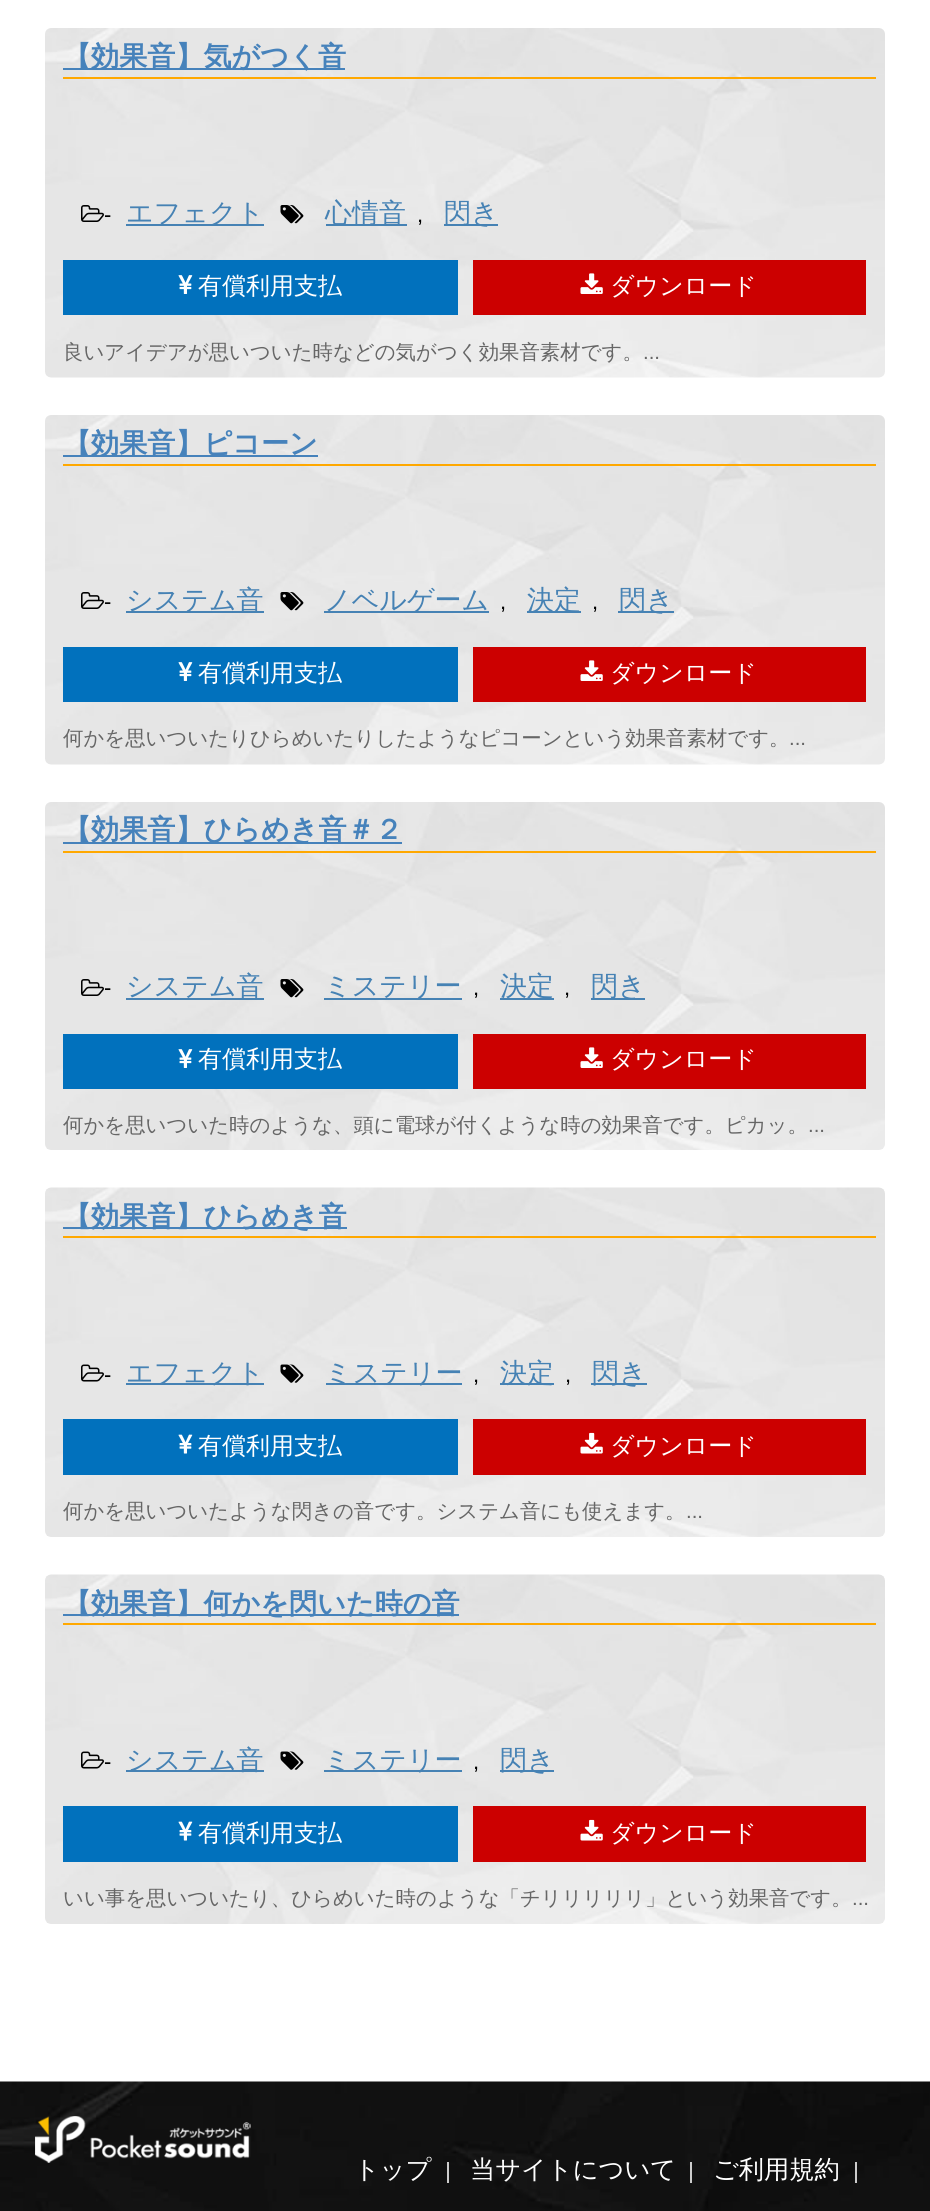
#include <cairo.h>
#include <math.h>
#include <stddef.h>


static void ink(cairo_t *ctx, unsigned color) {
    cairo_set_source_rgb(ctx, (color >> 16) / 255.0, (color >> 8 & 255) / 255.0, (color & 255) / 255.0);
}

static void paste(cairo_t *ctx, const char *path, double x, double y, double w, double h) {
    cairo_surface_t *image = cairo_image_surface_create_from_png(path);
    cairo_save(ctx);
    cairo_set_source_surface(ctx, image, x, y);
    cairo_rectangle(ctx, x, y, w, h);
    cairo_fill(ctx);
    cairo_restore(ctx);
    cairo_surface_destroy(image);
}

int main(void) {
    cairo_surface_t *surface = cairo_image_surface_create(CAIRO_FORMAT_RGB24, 930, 2211);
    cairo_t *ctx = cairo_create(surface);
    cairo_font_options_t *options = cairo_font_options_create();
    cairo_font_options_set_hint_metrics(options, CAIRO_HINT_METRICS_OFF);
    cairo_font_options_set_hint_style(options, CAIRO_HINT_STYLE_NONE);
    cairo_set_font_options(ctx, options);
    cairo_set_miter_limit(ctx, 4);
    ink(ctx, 0xFFFFFF);
    cairo_paint(ctx);
    paste(ctx, "media/1.png", 45, 28, 840, 350);
    ink(ctx, 0xFFA800);
    cairo_rectangle(ctx, 63, 77, 813, 2);
    cairo_fill(ctx);
    ink(ctx, 0x4682BB);
    cairo_rectangle(ctx, 63, 68, 282, 2);
    cairo_fill(ctx);
    cairo_select_font_face(ctx, "WenQuanYi Zen Hei", CAIRO_FONT_SLANT_NORMAL, CAIRO_FONT_WEIGHT_BOLD);
    cairo_set_font_size(ctx, 28.1);
    cairo_move_to(ctx, 63, 66);
    cairo_show_text(ctx, "【効果音】気がつく音");
    paste(ctx, "media/2.png", 81, 205, 23, 17);
    cairo_select_font_face(ctx, "Liberation Sans", CAIRO_FONT_SLANT_NORMAL, CAIRO_FONT_WEIGHT_NORMAL);
    cairo_set_font_size(ctx, 22);
    ink(ctx, 0x000000);
    cairo_move_to(ctx, 104, 222);
    cairo_show_text(ctx, "-");
    ink(ctx, 0x4682B4);
    cairo_rectangle(ctx, 126, 224, 138, 2);
    cairo_fill(ctx);
    cairo_select_font_face(ctx, "WenQuanYi Zen Hei Medium", CAIRO_FONT_SLANT_NORMAL, CAIRO_FONT_WEIGHT_NORMAL);
    cairo_set_font_size(ctx, 27);
    cairo_move_to(ctx, 126, 222);
    cairo_show_text(ctx, "エフェクト");
    paste(ctx, "media/3.png", 280, 205, 24, 19);
    cairo_rectangle(ctx, 326, 224, 81, 2);
    cairo_fill(ctx);
    cairo_move_to(ctx, 325, 222);
    cairo_show_text(ctx, "心情音");
    cairo_select_font_face(ctx, "Liberation Sans", CAIRO_FONT_SLANT_NORMAL, CAIRO_FONT_WEIGHT_NORMAL);
    cairo_set_font_size(ctx, 22);
    ink(ctx, 0x000000);
    cairo_move_to(ctx, 417, 222);
    cairo_show_text(ctx, ",");
    ink(ctx, 0x4682B4);
    cairo_rectangle(ctx, 444, 224, 54, 2);
    cairo_fill(ctx);
    cairo_select_font_face(ctx, "WenQuanYi Zen Hei Medium", CAIRO_FONT_SLANT_NORMAL, CAIRO_FONT_WEIGHT_NORMAL);
    cairo_set_font_size(ctx, 27);
    cairo_move_to(ctx, 444, 222);
    cairo_show_text(ctx, "閃き");
    ink(ctx, 0x0171BD);
    cairo_rectangle(ctx, 63, 260, 395, 55);
    cairo_fill(ctx);
    paste(ctx, "media/4.png", 178, 275, 15, 19);
    cairo_set_font_size(ctx, 24);
    ink(ctx, 0xFFFFFF);
    cairo_move_to(ctx, 198, 294);
    cairo_show_text(ctx, "有償利用支払");
    ink(ctx, 0xCC0000);
    cairo_rectangle(ctx, 473, 260, 393, 55);
    cairo_fill(ctx);
    paste(ctx, "media/5.png", 580, 273, 23, 21);
    ink(ctx, 0xFFFFFF);
    cairo_move_to(ctx, 610, 294);
    cairo_show_text(ctx, "ダウンロード");
    cairo_set_font_size(ctx, 20.4);
    ink(ctx, 0x666666);
    cairo_move_to(ctx, 63, 359);
    cairo_show_text(ctx, "良いアイデアが思いついた時などの気がつく効果音素材です。");
    cairo_select_font_face(ctx, "Liberation Sans", CAIRO_FONT_SLANT_NORMAL, CAIRO_FONT_WEIGHT_NORMAL);
    cairo_move_to(ctx, 643, 359);
    cairo_show_text(ctx, "...");
    paste(ctx, "media/1.png", 45, 415, 840, 350);
    ink(ctx, 0xFFA800);
    cairo_rectangle(ctx, 63, 464, 813, 2);
    cairo_fill(ctx);
    ink(ctx, 0x4682BB);
    cairo_rectangle(ctx, 63, 455, 255, 2);
    cairo_fill(ctx);
    cairo_select_font_face(ctx, "WenQuanYi Zen Hei", CAIRO_FONT_SLANT_NORMAL, CAIRO_FONT_WEIGHT_BOLD);
    cairo_set_font_size(ctx, 28.1);
    cairo_move_to(ctx, 63, 453);
    cairo_show_text(ctx, "【効果音】ピコーン");
    paste(ctx, "media/2.png", 81, 592, 23, 17);
    cairo_select_font_face(ctx, "Liberation Sans", CAIRO_FONT_SLANT_NORMAL, CAIRO_FONT_WEIGHT_NORMAL);
    cairo_set_font_size(ctx, 22);
    ink(ctx, 0x000000);
    cairo_move_to(ctx, 104, 609);
    cairo_show_text(ctx, "-");
    ink(ctx, 0x4682B4);
    cairo_rectangle(ctx, 126, 611, 138, 2);
    cairo_fill(ctx);
    cairo_select_font_face(ctx, "WenQuanYi Zen Hei Medium", CAIRO_FONT_SLANT_NORMAL, CAIRO_FONT_WEIGHT_NORMAL);
    cairo_set_font_size(ctx, 27);
    cairo_move_to(ctx, 126, 609);
    cairo_show_text(ctx, "システム音");
    paste(ctx, "media/3.png", 280, 592, 24, 19);
    cairo_rectangle(ctx, 324, 611, 165, 2);
    cairo_fill(ctx);
    cairo_move_to(ctx, 324, 609);
    cairo_show_text(ctx, "ノベルゲーム");
    cairo_select_font_face(ctx, "Liberation Sans", CAIRO_FONT_SLANT_NORMAL, CAIRO_FONT_WEIGHT_NORMAL);
    cairo_set_font_size(ctx, 22);
    ink(ctx, 0x000000);
    cairo_move_to(ctx, 500, 609);
    cairo_show_text(ctx, ",");
    ink(ctx, 0x4682B4);
    cairo_rectangle(ctx, 527, 611, 54, 2);
    cairo_fill(ctx);
    cairo_select_font_face(ctx, "WenQuanYi Zen Hei Medium", CAIRO_FONT_SLANT_NORMAL, CAIRO_FONT_WEIGHT_NORMAL);
    cairo_set_font_size(ctx, 27);
    cairo_move_to(ctx, 527, 609);
    cairo_show_text(ctx, "決定");
    cairo_select_font_face(ctx, "Liberation Sans", CAIRO_FONT_SLANT_NORMAL, CAIRO_FONT_WEIGHT_NORMAL);
    cairo_set_font_size(ctx, 22);
    ink(ctx, 0x000000);
    cairo_move_to(ctx, 592, 609);
    cairo_show_text(ctx, ",");
    ink(ctx, 0x4682B4);
    cairo_rectangle(ctx, 618, 611, 56, 2);
    cairo_fill(ctx);
    cairo_select_font_face(ctx, "WenQuanYi Zen Hei Medium", CAIRO_FONT_SLANT_NORMAL, CAIRO_FONT_WEIGHT_NORMAL);
    cairo_set_font_size(ctx, 27);
    cairo_move_to(ctx, 619, 609);
    cairo_show_text(ctx, "閃き");
    ink(ctx, 0x0171BD);
    cairo_rectangle(ctx, 63, 647, 395, 55);
    cairo_fill(ctx);
    paste(ctx, "media/4.png", 178, 662, 15, 19);
    cairo_set_font_size(ctx, 24);
    ink(ctx, 0xFFFFFF);
    cairo_move_to(ctx, 198, 681);
    cairo_show_text(ctx, "有償利用支払");
    ink(ctx, 0xCC0000);
    cairo_rectangle(ctx, 473, 647, 393, 55);
    cairo_fill(ctx);
    paste(ctx, "media/5.png", 580, 660, 23, 21);
    ink(ctx, 0xFFFFFF);
    cairo_move_to(ctx, 610, 681);
    cairo_show_text(ctx, "ダウンロード");
    cairo_set_font_size(ctx, 20.4);
    ink(ctx, 0x666666);
    cairo_move_to(ctx, 63, 745);
    cairo_show_text(ctx, "何かを思いついたりひらめいたりしたようなピコーンという効果音素材です。");
    cairo_select_font_face(ctx, "Liberation Sans", CAIRO_FONT_SLANT_NORMAL, CAIRO_FONT_WEIGHT_NORMAL);
    cairo_move_to(ctx, 789, 745);
    cairo_show_text(ctx, "...");
    paste(ctx, "media/6.png", 45, 802, 840, 348);
    ink(ctx, 0xFFA800);
    cairo_rectangle(ctx, 63, 851, 813, 2);
    cairo_fill(ctx);
    ink(ctx, 0x4682BB);
    cairo_rectangle(ctx, 63, 842, 339, 2);
    cairo_fill(ctx);
    cairo_select_font_face(ctx, "WenQuanYi Zen Hei", CAIRO_FONT_SLANT_NORMAL, CAIRO_FONT_WEIGHT_BOLD);
    cairo_set_font_size(ctx, 28.1);
    cairo_move_to(ctx, 63, 839);
    cairo_show_text(ctx, "【効果音】ひらめき音＃２");
    paste(ctx, "media/2.png", 81, 979, 23, 17);
    cairo_select_font_face(ctx, "Liberation Sans", CAIRO_FONT_SLANT_NORMAL, CAIRO_FONT_WEIGHT_NORMAL);
    cairo_set_font_size(ctx, 22);
    ink(ctx, 0x000000);
    cairo_move_to(ctx, 104, 995);
    cairo_show_text(ctx, "-");
    ink(ctx, 0x4682B4);
    cairo_rectangle(ctx, 126, 998, 138, 2);
    cairo_fill(ctx);
    cairo_select_font_face(ctx, "WenQuanYi Zen Hei Medium", CAIRO_FONT_SLANT_NORMAL, CAIRO_FONT_WEIGHT_NORMAL);
    cairo_set_font_size(ctx, 27);
    cairo_move_to(ctx, 126, 995);
    cairo_show_text(ctx, "システム音");
    paste(ctx, "media/3.png", 280, 979, 24, 19);
    cairo_rectangle(ctx, 324, 998, 138, 2);
    cairo_fill(ctx);
    cairo_move_to(ctx, 324, 995);
    cairo_show_text(ctx, "ミステリー");
    cairo_select_font_face(ctx, "Liberation Sans", CAIRO_FONT_SLANT_NORMAL, CAIRO_FONT_WEIGHT_NORMAL);
    cairo_set_font_size(ctx, 22);
    ink(ctx, 0x000000);
    cairo_move_to(ctx, 473, 995);
    cairo_show_text(ctx, ",");
    ink(ctx, 0x4682B4);
    cairo_rectangle(ctx, 500, 998, 54, 2);
    cairo_fill(ctx);
    cairo_select_font_face(ctx, "WenQuanYi Zen Hei Medium", CAIRO_FONT_SLANT_NORMAL, CAIRO_FONT_WEIGHT_NORMAL);
    cairo_set_font_size(ctx, 27);
    cairo_move_to(ctx, 500, 995);
    cairo_show_text(ctx, "決定");
    cairo_select_font_face(ctx, "Liberation Sans", CAIRO_FONT_SLANT_NORMAL, CAIRO_FONT_WEIGHT_NORMAL);
    cairo_set_font_size(ctx, 22);
    ink(ctx, 0x000000);
    cairo_move_to(ctx, 564, 995);
    cairo_show_text(ctx, ",");
    ink(ctx, 0x4682B4);
    cairo_rectangle(ctx, 591, 998, 54, 2);
    cairo_fill(ctx);
    cairo_select_font_face(ctx, "WenQuanYi Zen Hei Medium", CAIRO_FONT_SLANT_NORMAL, CAIRO_FONT_WEIGHT_NORMAL);
    cairo_set_font_size(ctx, 27);
    cairo_move_to(ctx, 591, 995);
    cairo_show_text(ctx, "閃き");
    ink(ctx, 0x0171BD);
    cairo_rectangle(ctx, 63, 1034, 395, 55);
    cairo_fill(ctx);
    paste(ctx, "media/4.png", 178, 1049, 15, 19);
    cairo_set_font_size(ctx, 24);
    ink(ctx, 0xFFFFFF);
    cairo_move_to(ctx, 198, 1067);
    cairo_show_text(ctx, "有償利用支払");
    ink(ctx, 0xCC0000);
    cairo_rectangle(ctx, 473, 1034, 393, 55);
    cairo_fill(ctx);
    paste(ctx, "media/5.png", 580, 1047, 23, 21);
    ink(ctx, 0xFFFFFF);
    cairo_move_to(ctx, 610, 1067);
    cairo_show_text(ctx, "ダウンロード");
    cairo_set_font_size(ctx, 20.4);
    ink(ctx, 0x666666);
    cairo_move_to(ctx, 63, 1132);
    cairo_show_text(ctx, "何かを思いついた時のような、頭に電球が付くような時の効果音です。ピカッ。");
    cairo_select_font_face(ctx, "Liberation Sans", CAIRO_FONT_SLANT_NORMAL, CAIRO_FONT_WEIGHT_NORMAL);
    cairo_move_to(ctx, 808, 1132);
    cairo_show_text(ctx, "...");
    paste(ctx, "media/7.png", 45, 1187, 840, 350);
    ink(ctx, 0xFFA800);
    cairo_rectangle(ctx, 63, 1236, 813, 2);
    cairo_fill(ctx);
    ink(ctx, 0x4682BB);
    cairo_rectangle(ctx, 63, 1227, 284, 2);
    cairo_fill(ctx);
    cairo_select_font_face(ctx, "WenQuanYi Zen Hei", CAIRO_FONT_SLANT_NORMAL, CAIRO_FONT_WEIGHT_BOLD);
    cairo_set_font_size(ctx, 28.1);
    cairo_move_to(ctx, 63, 1226);
    cairo_show_text(ctx, "【効果音】ひらめき音");
    paste(ctx, "media/8.png", 81, 1364, 23, 18);
    cairo_select_font_face(ctx, "Liberation Sans", CAIRO_FONT_SLANT_NORMAL, CAIRO_FONT_WEIGHT_NORMAL);
    cairo_set_font_size(ctx, 22);
    ink(ctx, 0x000000);
    cairo_move_to(ctx, 104, 1382);
    cairo_show_text(ctx, "-");
    ink(ctx, 0x4682B4);
    cairo_rectangle(ctx, 126, 1383, 138, 2);
    cairo_fill(ctx);
    cairo_select_font_face(ctx, "WenQuanYi Zen Hei Medium", CAIRO_FONT_SLANT_NORMAL, CAIRO_FONT_WEIGHT_NORMAL);
    cairo_set_font_size(ctx, 27);
    cairo_move_to(ctx, 126, 1382);
    cairo_show_text(ctx, "エフェクト");
    paste(ctx, "media/9.png", 280, 1364, 24, 19);
    cairo_rectangle(ctx, 326, 1383, 136, 2);
    cairo_fill(ctx);
    cairo_move_to(ctx, 325, 1382);
    cairo_show_text(ctx, "ミステリー");
    cairo_select_font_face(ctx, "Liberation Sans", CAIRO_FONT_SLANT_NORMAL, CAIRO_FONT_WEIGHT_NORMAL);
    cairo_set_font_size(ctx, 22);
    ink(ctx, 0x000000);
    cairo_move_to(ctx, 473, 1382);
    cairo_show_text(ctx, ",");
    ink(ctx, 0x4682B4);
    cairo_rectangle(ctx, 500, 1383, 54, 2);
    cairo_fill(ctx);
    cairo_select_font_face(ctx, "WenQuanYi Zen Hei Medium", CAIRO_FONT_SLANT_NORMAL, CAIRO_FONT_WEIGHT_NORMAL);
    cairo_set_font_size(ctx, 27);
    cairo_move_to(ctx, 500, 1382);
    cairo_show_text(ctx, "決定");
    cairo_select_font_face(ctx, "Liberation Sans", CAIRO_FONT_SLANT_NORMAL, CAIRO_FONT_WEIGHT_NORMAL);
    cairo_set_font_size(ctx, 22);
    ink(ctx, 0x000000);
    cairo_move_to(ctx, 565, 1382);
    cairo_show_text(ctx, ",");
    ink(ctx, 0x4682B4);
    cairo_rectangle(ctx, 591, 1383, 56, 2);
    cairo_fill(ctx);
    cairo_select_font_face(ctx, "WenQuanYi Zen Hei Medium", CAIRO_FONT_SLANT_NORMAL, CAIRO_FONT_WEIGHT_NORMAL);
    cairo_set_font_size(ctx, 27);
    cairo_move_to(ctx, 592, 1382);
    cairo_show_text(ctx, "閃き");
    ink(ctx, 0x0171BD);
    cairo_rectangle(ctx, 63, 1419, 395, 56);
    cairo_fill(ctx);
    paste(ctx, "media/10.png", 178, 1434, 15, 20);
    cairo_set_font_size(ctx, 24);
    ink(ctx, 0xFFFFFF);
    cairo_move_to(ctx, 198, 1454);
    cairo_show_text(ctx, "有償利用支払");
    ink(ctx, 0xCC0000);
    cairo_rectangle(ctx, 473, 1419, 393, 56);
    cairo_fill(ctx);
    paste(ctx, "media/11.png", 580, 1432, 23, 22);
    ink(ctx, 0xFFFFFF);
    cairo_move_to(ctx, 610, 1454);
    cairo_show_text(ctx, "ダウンロード");
    cairo_set_font_size(ctx, 20.4);
    ink(ctx, 0x666666);
    cairo_move_to(ctx, 63, 1518);
    cairo_show_text(ctx, "何かを思いついたような閃きの音です。システム音にも使えます。");
    cairo_select_font_face(ctx, "Liberation Sans", CAIRO_FONT_SLANT_NORMAL, CAIRO_FONT_WEIGHT_NORMAL);
    cairo_move_to(ctx, 686, 1518);
    cairo_show_text(ctx, "...");
    paste(ctx, "media/7.png", 45, 1574, 840, 350);
    ink(ctx, 0xFFA800);
    cairo_rectangle(ctx, 63, 1623, 813, 2);
    cairo_fill(ctx);
    ink(ctx, 0x4682BB);
    cairo_rectangle(ctx, 63, 1614, 396, 2);
    cairo_fill(ctx);
    cairo_select_font_face(ctx, "WenQuanYi Zen Hei", CAIRO_FONT_SLANT_NORMAL, CAIRO_FONT_WEIGHT_BOLD);
    cairo_set_font_size(ctx, 28.1);
    cairo_move_to(ctx, 63, 1613);
    cairo_show_text(ctx, "【効果音】何かを閃いた時の音");
    paste(ctx, "media/8.png", 81, 1751, 23, 18);
    cairo_select_font_face(ctx, "Liberation Sans", CAIRO_FONT_SLANT_NORMAL, CAIRO_FONT_WEIGHT_NORMAL);
    cairo_set_font_size(ctx, 22);
    ink(ctx, 0x000000);
    cairo_move_to(ctx, 104, 1769);
    cairo_show_text(ctx, "-");
    ink(ctx, 0x4682B4);
    cairo_rectangle(ctx, 126, 1770, 138, 2);
    cairo_fill(ctx);
    cairo_select_font_face(ctx, "WenQuanYi Zen Hei Medium", CAIRO_FONT_SLANT_NORMAL, CAIRO_FONT_WEIGHT_NORMAL);
    cairo_set_font_size(ctx, 27);
    cairo_move_to(ctx, 126, 1769);
    cairo_show_text(ctx, "システム音");
    paste(ctx, "media/9.png", 280, 1751, 24, 19);
    cairo_rectangle(ctx, 324, 1770, 138, 2);
    cairo_fill(ctx);
    cairo_move_to(ctx, 324, 1769);
    cairo_show_text(ctx, "ミステリー");
    cairo_select_font_face(ctx, "Liberation Sans", CAIRO_FONT_SLANT_NORMAL, CAIRO_FONT_WEIGHT_NORMAL);
    cairo_set_font_size(ctx, 22);
    ink(ctx, 0x000000);
    cairo_move_to(ctx, 473, 1769);
    cairo_show_text(ctx, ",");
    ink(ctx, 0x4682B4);
    cairo_rectangle(ctx, 500, 1770, 54, 2);
    cairo_fill(ctx);
    cairo_select_font_face(ctx, "WenQuanYi Zen Hei Medium", CAIRO_FONT_SLANT_NORMAL, CAIRO_FONT_WEIGHT_NORMAL);
    cairo_set_font_size(ctx, 27);
    cairo_move_to(ctx, 500, 1769);
    cairo_show_text(ctx, "閃き");
    ink(ctx, 0x0171BD);
    cairo_rectangle(ctx, 63, 1806, 395, 56);
    cairo_fill(ctx);
    paste(ctx, "media/10.png", 178, 1821, 15, 20);
    cairo_set_font_size(ctx, 24);
    ink(ctx, 0xFFFFFF);
    cairo_move_to(ctx, 198, 1841);
    cairo_show_text(ctx, "有償利用支払");
    ink(ctx, 0xCC0000);
    cairo_rectangle(ctx, 473, 1806, 393, 56);
    cairo_fill(ctx);
    paste(ctx, "media/11.png", 580, 1819, 23, 22);
    ink(ctx, 0xFFFFFF);
    cairo_move_to(ctx, 610, 1841);
    cairo_show_text(ctx, "ダウンロード");
    cairo_set_font_size(ctx, 20.4);
    ink(ctx, 0x666666);
    cairo_move_to(ctx, 63, 1905);
    cairo_show_text(ctx, "いい事を思いついたり、ひらめいた時のような「チリリリリリ」という効果音です。");
    cairo_select_font_face(ctx, "Liberation Sans", CAIRO_FONT_SLANT_NORMAL, CAIRO_FONT_WEIGHT_NORMAL);
    cairo_move_to(ctx, 852, 1905);
    cairo_show_text(ctx, "...");
    paste(ctx, "media/12.png", 0, 2081, 930, 130);
    paste(ctx, "media/13.png", 35, 2116, 216, 47);
    cairo_select_font_face(ctx, "WenQuanYi Zen Hei Medium", CAIRO_FONT_SLANT_NORMAL, CAIRO_FONT_WEIGHT_NORMAL);
    cairo_set_font_size(ctx, 25.25);
    ink(ctx, 0xFFFFFF);
    cairo_move_to(ctx, 354, 2178);
    cairo_show_text(ctx, "トップ");
    ink(ctx, 0xCCCCCC);
    cairo_rectangle(ctx, 447, 2162, 2, 21);
    cairo_fill(ctx);
    ink(ctx, 0xFFFFFF);
    cairo_move_to(ctx, 470, 2178);
    cairo_show_text(ctx, "当サイトについて");
    ink(ctx, 0xCCCCCC);
    cairo_rectangle(ctx, 690, 2162, 2, 21);
    cairo_fill(ctx);
    ink(ctx, 0xFFFFFF);
    cairo_move_to(ctx, 713, 2178);
    cairo_show_text(ctx, "ご利用規約");
    ink(ctx, 0xCCCCCC);
    cairo_rectangle(ctx, 855, 2162, 2, 21);
    cairo_fill(ctx);
    cairo_surface_write_to_png(surface, "image.png");
    cairo_font_options_destroy(options);
    cairo_destroy(ctx);
    cairo_surface_destroy(surface);
    return 0;
}
